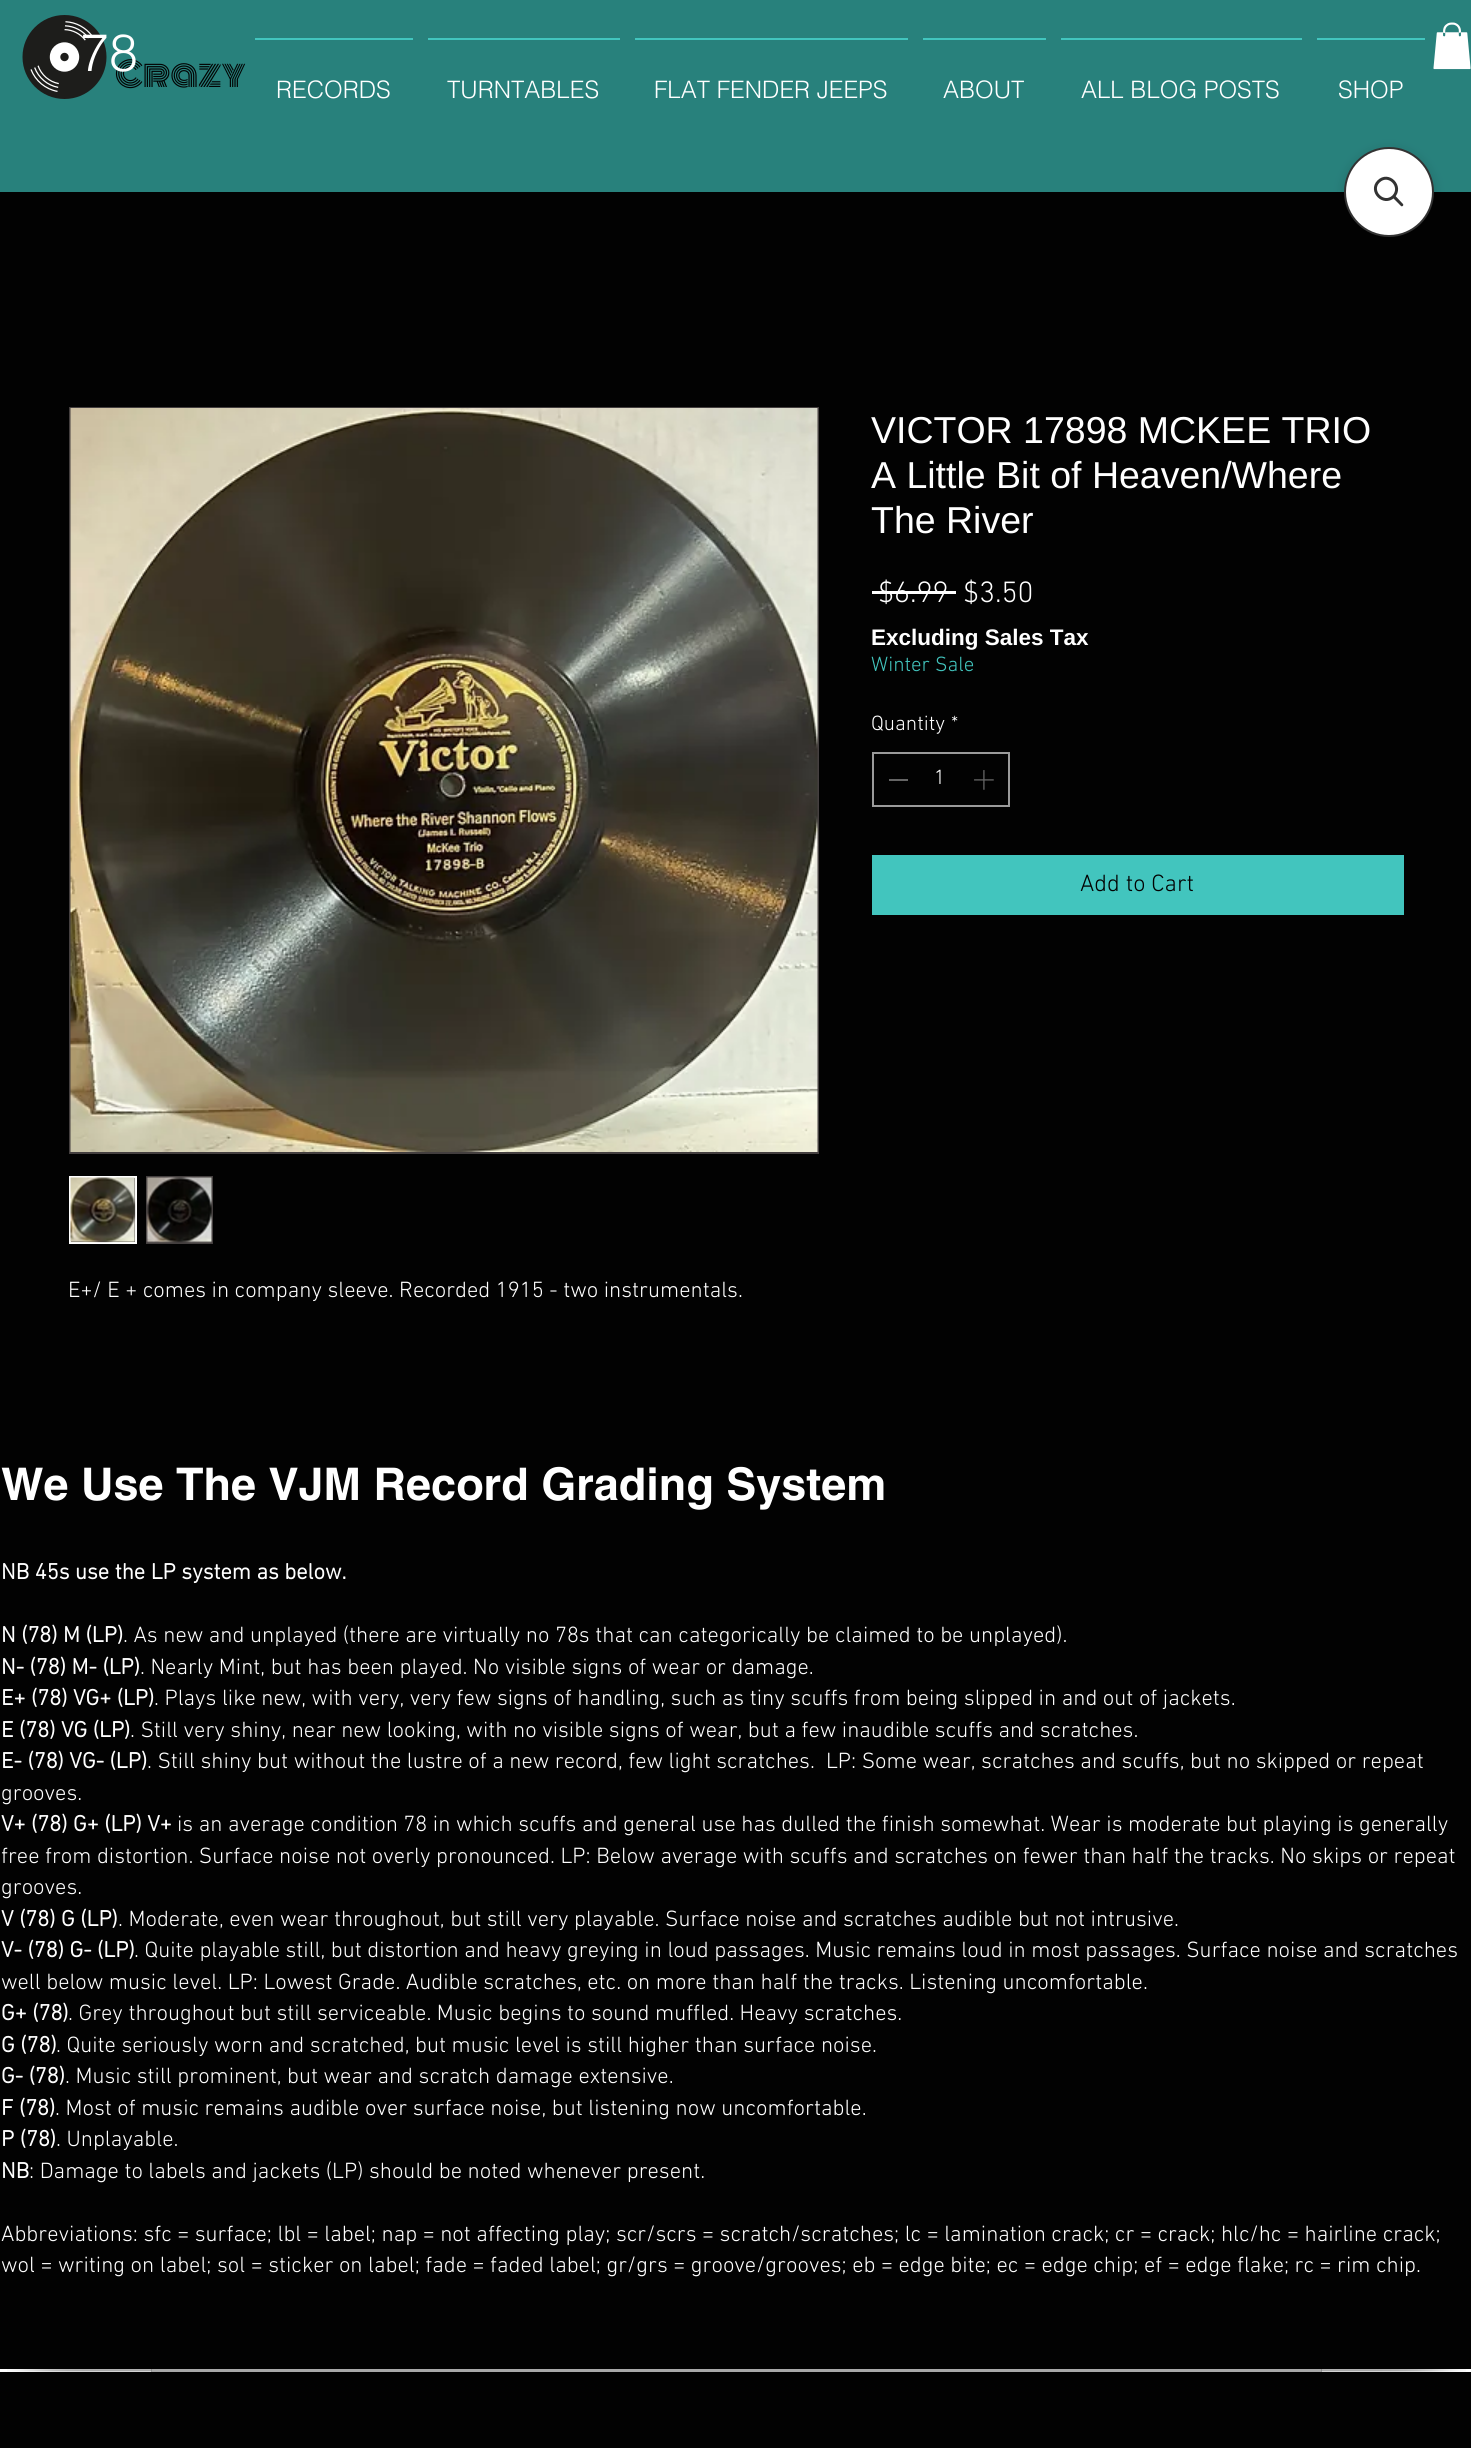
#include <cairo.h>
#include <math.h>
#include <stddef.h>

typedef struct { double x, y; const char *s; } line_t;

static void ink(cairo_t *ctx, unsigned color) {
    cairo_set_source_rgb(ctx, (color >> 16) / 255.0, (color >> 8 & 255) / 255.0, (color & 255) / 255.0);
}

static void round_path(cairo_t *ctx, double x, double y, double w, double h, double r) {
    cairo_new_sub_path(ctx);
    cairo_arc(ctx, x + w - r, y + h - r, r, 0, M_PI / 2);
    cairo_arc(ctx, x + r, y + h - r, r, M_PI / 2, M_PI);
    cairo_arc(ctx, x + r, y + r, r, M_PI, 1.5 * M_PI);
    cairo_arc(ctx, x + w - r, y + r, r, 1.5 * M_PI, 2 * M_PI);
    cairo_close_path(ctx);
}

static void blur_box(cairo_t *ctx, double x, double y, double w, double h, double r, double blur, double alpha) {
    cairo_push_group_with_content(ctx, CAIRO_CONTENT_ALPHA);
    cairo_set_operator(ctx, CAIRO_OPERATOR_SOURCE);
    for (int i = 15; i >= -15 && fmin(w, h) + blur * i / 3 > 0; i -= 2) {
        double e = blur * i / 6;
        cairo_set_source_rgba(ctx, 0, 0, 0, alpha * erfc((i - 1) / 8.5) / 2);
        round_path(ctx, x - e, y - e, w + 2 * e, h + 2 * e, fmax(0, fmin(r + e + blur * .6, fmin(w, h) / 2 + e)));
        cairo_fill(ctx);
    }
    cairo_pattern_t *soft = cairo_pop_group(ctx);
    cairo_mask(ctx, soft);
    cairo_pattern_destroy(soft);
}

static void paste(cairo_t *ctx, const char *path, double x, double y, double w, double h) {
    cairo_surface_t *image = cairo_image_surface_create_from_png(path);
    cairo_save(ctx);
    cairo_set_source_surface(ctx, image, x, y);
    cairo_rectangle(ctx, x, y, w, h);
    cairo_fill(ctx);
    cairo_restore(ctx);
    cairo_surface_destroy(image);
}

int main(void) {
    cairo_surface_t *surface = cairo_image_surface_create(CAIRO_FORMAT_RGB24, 1471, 2448);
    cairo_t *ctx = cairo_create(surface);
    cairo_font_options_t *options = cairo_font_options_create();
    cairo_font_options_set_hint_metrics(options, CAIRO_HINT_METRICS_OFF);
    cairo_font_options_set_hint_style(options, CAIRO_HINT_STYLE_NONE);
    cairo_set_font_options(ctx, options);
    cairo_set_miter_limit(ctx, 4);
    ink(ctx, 0x020202);
    cairo_paint(ctx);
    ink(ctx, 0x28817C);
    cairo_rectangle(ctx, 0, 0, 1471, 192);
    cairo_fill(ctx);
    paste(ctx, "media/1.png", 22, 15, 85, 84);
    cairo_select_font_face(ctx, "Monoton", CAIRO_FONT_SLANT_NORMAL, CAIRO_FONT_WEIGHT_NORMAL);
    cairo_set_font_size(ctx, 33);
    ink(ctx, 0x020202);
    cairo_move_to(ctx, 115, 87);
    cairo_show_text(ctx, "Crazy");
    cairo_select_font_face(ctx, "helvetica Light", CAIRO_FONT_SLANT_NORMAL, CAIRO_FONT_WEIGHT_NORMAL);
    cairo_set_font_size(ctx, 52);
    ink(ctx, 0xFFFFFF);
    cairo_move_to(ctx, 80, 71);
    cairo_show_text(ctx, "78");
    ink(ctx, 0x42C5BE);
    cairo_rectangle(ctx, 255, 38, 158, 2);
    cairo_fill(ctx);
    cairo_set_font_size(ctx, 24);
    ink(ctx, 0xFFFFFF);
    cairo_move_to(ctx, 276, 98);
    cairo_show_text(ctx, "RECORDS");
    ink(ctx, 0x42C5BE);
    cairo_rectangle(ctx, 428, 38, 192, 2);
    cairo_fill(ctx);
    ink(ctx, 0xFFFFFF);
    cairo_move_to(ctx, 447, 98);
    cairo_show_text(ctx, "TURNTABLES");
    ink(ctx, 0x42C5BE);
    cairo_rectangle(ctx, 635, 38, 273, 2);
    cairo_fill(ctx);
    ink(ctx, 0xFFFFFF);
    cairo_move_to(ctx, 654, 98);
    cairo_show_text(ctx, "FLAT FENDER JEEPS");
    ink(ctx, 0x42C5BE);
    cairo_rectangle(ctx, 923, 38, 123, 2);
    cairo_fill(ctx);
    ink(ctx, 0xFFFFFF);
    cairo_move_to(ctx, 943, 98);
    cairo_show_text(ctx, "ABOUT");
    ink(ctx, 0x42C5BE);
    cairo_rectangle(ctx, 1061, 38, 241, 2);
    cairo_fill(ctx);
    ink(ctx, 0xFFFFFF);
    cairo_move_to(ctx, 1081, 98);
    cairo_show_text(ctx, "ALL BLOG POSTS");
    ink(ctx, 0x42C5BE);
    cairo_rectangle(ctx, 1317, 38, 108, 2);
    cairo_fill(ctx);
    ink(ctx, 0xFFFFFF);
    cairo_move_to(ctx, 1338, 98);
    cairo_show_text(ctx, "SHOP");
    paste(ctx, "media/2.png", 1433, 22, 38, 48);
    cairo_select_font_face(ctx, "Liberation Sans", CAIRO_FONT_SLANT_NORMAL, CAIRO_FONT_WEIGHT_NORMAL);
    cairo_set_font_size(ctx, 37.5);
    {
        static const line_t items[] = {
            {871, 443, "VICTOR 17898 MCKEE TRIO"},
            {871, 488, "A Little Bit of Heaven/Where"},
            {871, 533, "The River"},
        };
        for (size_t i = 0; i < sizeof items / sizeof *items; i++) {
            cairo_move_to(ctx, items[i].x, items[i].y);
            cairo_show_text(ctx, items[i].s);
        }
    }
    cairo_select_font_face(ctx, "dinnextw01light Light", CAIRO_FONT_SLANT_NORMAL, CAIRO_FONT_WEIGHT_NORMAL);
    cairo_set_font_size(ctx, 30);
    cairo_move_to(ctx, 878, 602);
    cairo_show_text(ctx, "$6.99");
    cairo_rectangle(ctx, 872, 591, 84, 3);
    cairo_fill(ctx);
    cairo_move_to(ctx, 963, 602);
    cairo_show_text(ctx, "$3.50");
    cairo_select_font_face(ctx, "Liberation Sans", CAIRO_FONT_SLANT_NORMAL, CAIRO_FONT_WEIGHT_BOLD);
    cairo_set_font_size(ctx, 22.5);
    cairo_move_to(ctx, 871, 645);
    cairo_show_text(ctx, "Excluding Sales Tax");
    cairo_select_font_face(ctx, "dinnextw01light Light", CAIRO_FONT_SLANT_NORMAL, CAIRO_FONT_WEIGHT_NORMAL);
    cairo_set_font_size(ctx, 21);
    ink(ctx, 0x42C5BE);
    cairo_move_to(ctx, 871, 671);
    cairo_show_text(ctx, "Winter Sale");
    ink(ctx, 0xFFFFFF);
    cairo_move_to(ctx, 871, 730);
    cairo_show_text(ctx, "Quantity");
    cairo_move_to(ctx, 951, 730);
    cairo_show_text(ctx, "*");
    cairo_rectangle(ctx, 873, 753, 136, 53);
    ink(ctx, 0x9A9A9A);
    cairo_stroke(ctx);
    ink(ctx, 0x656565);
    cairo_rectangle(ctx, 889, 779, 19, 2);
    cairo_fill(ctx);
    ink(ctx, 0xFFFFFF);
    cairo_move_to(ctx, 934, 784);
    cairo_show_text(ctx, "1");
    paste(ctx, "media/3.png", 974, 770, 20, 20);
    ink(ctx, 0x42C5BE);
    cairo_rectangle(ctx, 872, 855, 532, 60);
    cairo_fill(ctx);
    cairo_set_font_size(ctx, 24);
    ink(ctx, 0x020202);
    cairo_move_to(ctx, 1080, 891);
    cairo_show_text(ctx, "Add to Cart");
    cairo_rectangle(ctx, 70, 408, 748, 745);
    ink(ctx, 0x443F3F);
    cairo_stroke(ctx);
    paste(ctx, "media/4.png", 70, 408, 748, 744);
    cairo_rectangle(ctx, 70, 1177, 66, 66);
    cairo_fill_preserve(ctx);
    ink(ctx, 0xFFFFFF);
    cairo_stroke(ctx);
    paste(ctx, "media/5.png", 70, 1177, 66, 66);
    ink(ctx, 0x443F3F);
    cairo_rectangle(ctx, 146, 1176, 67, 68);
    cairo_fill(ctx);
    paste(ctx, "media/6.png", 146, 1177, 66, 66);
    cairo_set_font_size(ctx, 22.5);
    ink(ctx, 0xFFFFFF);
    cairo_move_to(ctx, 68, 1297);
    cairo_show_text(ctx, "E+/ E + comes in company sleeve. Recorded 1915 - two instrumentals.");
    cairo_select_font_face(ctx, "helvetica", CAIRO_FONT_SLANT_NORMAL, CAIRO_FONT_WEIGHT_BOLD);
    cairo_set_font_size(ctx, 45);
    cairo_move_to(ctx, 1, 1500);
    cairo_show_text(ctx, "We Use The VJM Record Grading System");
    cairo_select_font_face(ctx, "dinnextw01light", CAIRO_FONT_SLANT_NORMAL, CAIRO_FONT_WEIGHT_BOLD);
    cairo_set_font_size(ctx, 22.5);
    cairo_move_to(ctx, 1, 1579);
    cairo_show_text(ctx, "NB 45s use the LP system as below.");
    cairo_move_to(ctx, 1, 1642);
    cairo_show_text(ctx, "N (78) M (LP)");
    cairo_select_font_face(ctx, "dinnextw01light Light", CAIRO_FONT_SLANT_NORMAL, CAIRO_FONT_WEIGHT_NORMAL);
    cairo_move_to(ctx, 123, 1642);
    cairo_show_text(ctx, ". As new and unplayed (there are virtually no 78s that can categorically be claimed to be unplayed).");
    cairo_select_font_face(ctx, "dinnextw01light", CAIRO_FONT_SLANT_NORMAL, CAIRO_FONT_WEIGHT_BOLD);
    cairo_move_to(ctx, 1, 1674);
    cairo_show_text(ctx, "N- (78) M- (LP)");
    cairo_select_font_face(ctx, "dinnextw01light Light", CAIRO_FONT_SLANT_NORMAL, CAIRO_FONT_WEIGHT_NORMAL);
    cairo_move_to(ctx, 140, 1674);
    cairo_show_text(ctx, ". Nearly Mint, but has been played. No visible signs of wear or damage.");
    cairo_select_font_face(ctx, "dinnextw01light", CAIRO_FONT_SLANT_NORMAL, CAIRO_FONT_WEIGHT_BOLD);
    cairo_move_to(ctx, 1, 1705);
    cairo_show_text(ctx, "E+ (78) VG+ (LP)");
    cairo_select_font_face(ctx, "dinnextw01light Light", CAIRO_FONT_SLANT_NORMAL, CAIRO_FONT_WEIGHT_NORMAL);
    cairo_move_to(ctx, 154, 1705);
    cairo_show_text(ctx, ". Plays like new, with very, very few signs of handling, such as tiny scuffs from being slipped in and out of jackets.");
    cairo_select_font_face(ctx, "dinnextw01light", CAIRO_FONT_SLANT_NORMAL, CAIRO_FONT_WEIGHT_BOLD);
    cairo_move_to(ctx, 1, 1737);
    cairo_show_text(ctx, "E (78) VG (LP)");
    cairo_select_font_face(ctx, "dinnextw01light Light", CAIRO_FONT_SLANT_NORMAL, CAIRO_FONT_WEIGHT_NORMAL);
    cairo_move_to(ctx, 130, 1737);
    cairo_show_text(ctx, ". Still very shiny, near new looking, with no visible signs of wear, but a few inaudible scuffs and scratches.");
    cairo_select_font_face(ctx, "dinnextw01light", CAIRO_FONT_SLANT_NORMAL, CAIRO_FONT_WEIGHT_BOLD);
    cairo_move_to(ctx, 1, 1768);
    cairo_show_text(ctx, "E- (78) VG- (LP)");
    cairo_select_font_face(ctx, "dinnextw01light Light", CAIRO_FONT_SLANT_NORMAL, CAIRO_FONT_WEIGHT_NORMAL);
    cairo_move_to(ctx, 147, 1768);
    cairo_show_text(ctx, ". Still shiny but without the lustre of a new record, few light scratches.  LP: Some wear, scratches and scuffs, but no skipped or repeat");
    cairo_move_to(ctx, 1, 1800);
    cairo_show_text(ctx, "grooves.");
    cairo_select_font_face(ctx, "dinnextw01light", CAIRO_FONT_SLANT_NORMAL, CAIRO_FONT_WEIGHT_BOLD);
    cairo_move_to(ctx, 1, 1831);
    cairo_show_text(ctx, "V+ (78) G+ (LP) V+");
    cairo_select_font_face(ctx, "dinnextw01light Light", CAIRO_FONT_SLANT_NORMAL, CAIRO_FONT_WEIGHT_NORMAL);
    {
        static const line_t items[] = {
            {177, 1831, "is an average condition 78 in which scuffs and general use has dulled the finish somewhat. Wear is moderate but playing is generally"},
            {1, 1863, "free from distortion. Surface noise not overly pronounced. LP: Below average with scuffs and scratches on fewer than half the tracks. No skips or repeat"},
            {1, 1894, "grooves."},
        };
        for (size_t i = 0; i < sizeof items / sizeof *items; i++) {
            cairo_move_to(ctx, items[i].x, items[i].y);
            cairo_show_text(ctx, items[i].s);
        }
    }
    cairo_select_font_face(ctx, "dinnextw01light", CAIRO_FONT_SLANT_NORMAL, CAIRO_FONT_WEIGHT_BOLD);
    cairo_move_to(ctx, 1, 1926);
    cairo_show_text(ctx, "V (78) G (LP)");
    cairo_select_font_face(ctx, "dinnextw01light Light", CAIRO_FONT_SLANT_NORMAL, CAIRO_FONT_WEIGHT_NORMAL);
    cairo_move_to(ctx, 118, 1926);
    cairo_show_text(ctx, ". Moderate, even wear throughout, but still very playable. Surface noise and scratches audible but not intrusive.");
    cairo_select_font_face(ctx, "dinnextw01light", CAIRO_FONT_SLANT_NORMAL, CAIRO_FONT_WEIGHT_BOLD);
    cairo_move_to(ctx, 1, 1957);
    cairo_show_text(ctx, "V- (78) G- (LP)");
    cairo_select_font_face(ctx, "dinnextw01light Light", CAIRO_FONT_SLANT_NORMAL, CAIRO_FONT_WEIGHT_NORMAL);
    cairo_move_to(ctx, 134, 1957);
    cairo_show_text(ctx, ". Quite playable still, but distortion and heavy greying in loud passages. Music remains loud in most passages. Surface noise and scratches");
    cairo_move_to(ctx, 1, 1989);
    cairo_show_text(ctx, "well below music level. LP: Lowest Grade. Audible scratches, etc. on more than half the tracks. Listening uncomfortable.");
    cairo_select_font_face(ctx, "dinnextw01light", CAIRO_FONT_SLANT_NORMAL, CAIRO_FONT_WEIGHT_BOLD);
    cairo_move_to(ctx, 1, 2020);
    cairo_show_text(ctx, "G+ (78)");
    cairo_select_font_face(ctx, "dinnextw01light Light", CAIRO_FONT_SLANT_NORMAL, CAIRO_FONT_WEIGHT_NORMAL);
    cairo_move_to(ctx, 68, 2020);
    cairo_show_text(ctx, ". Grey throughout but still serviceable. Music begins to sound muffled. Heavy scratches.");
    cairo_select_font_face(ctx, "dinnextw01light", CAIRO_FONT_SLANT_NORMAL, CAIRO_FONT_WEIGHT_BOLD);
    cairo_move_to(ctx, 1, 2052);
    cairo_show_text(ctx, "G (78)");
    cairo_select_font_face(ctx, "dinnextw01light Light", CAIRO_FONT_SLANT_NORMAL, CAIRO_FONT_WEIGHT_NORMAL);
    cairo_move_to(ctx, 56, 2052);
    cairo_show_text(ctx, ". Quite seriously worn and scratched, but music level is still higher than surface noise.");
    cairo_select_font_face(ctx, "dinnextw01light", CAIRO_FONT_SLANT_NORMAL, CAIRO_FONT_WEIGHT_BOLD);
    cairo_move_to(ctx, 1, 2083);
    cairo_show_text(ctx, "G- (78)");
    cairo_select_font_face(ctx, "dinnextw01light Light", CAIRO_FONT_SLANT_NORMAL, CAIRO_FONT_WEIGHT_NORMAL);
    cairo_move_to(ctx, 65, 2083);
    cairo_show_text(ctx, ". Music still prominent, but wear and scratch damage extensive.");
    cairo_select_font_face(ctx, "dinnextw01light", CAIRO_FONT_SLANT_NORMAL, CAIRO_FONT_WEIGHT_BOLD);
    cairo_move_to(ctx, 1, 2115);
    cairo_show_text(ctx, "F (78)");
    cairo_select_font_face(ctx, "dinnextw01light Light", CAIRO_FONT_SLANT_NORMAL, CAIRO_FONT_WEIGHT_NORMAL);
    cairo_move_to(ctx, 55, 2115);
    cairo_show_text(ctx, ". Most of music remains audible over surface noise, but listening now uncomfortable.");
    cairo_select_font_face(ctx, "dinnextw01light", CAIRO_FONT_SLANT_NORMAL, CAIRO_FONT_WEIGHT_BOLD);
    cairo_move_to(ctx, 1, 2146);
    cairo_show_text(ctx, "P (78)");
    cairo_select_font_face(ctx, "dinnextw01light Light", CAIRO_FONT_SLANT_NORMAL, CAIRO_FONT_WEIGHT_NORMAL);
    cairo_move_to(ctx, 56, 2146);
    cairo_show_text(ctx, ". Unplayable.");
    cairo_select_font_face(ctx, "dinnextw01light", CAIRO_FONT_SLANT_NORMAL, CAIRO_FONT_WEIGHT_BOLD);
    cairo_move_to(ctx, 1, 2178);
    cairo_show_text(ctx, "NB");
    cairo_select_font_face(ctx, "dinnextw01light Light", CAIRO_FONT_SLANT_NORMAL, CAIRO_FONT_WEIGHT_NORMAL);
    {
        static const line_t items[] = {
            {29, 2178, ": Damage to labels and jackets (LP) should be noted whenever present."},
            {1, 2241, "Abbreviations: sfc = surface; lbl = label; nap = not affecting play; scr/scrs = scratch/scratches; lc = lamination crack; cr = crack; hlc/hc = hairline crack;"},
            {1, 2272, "wol = writing on label; sol = sticker on label; fade = faded label; gr/grs = groove/grooves; eb = edge bite; ec = edge chip; ef = edge flake; rc = rim chip."},
        };
        for (size_t i = 0; i < sizeof items / sizeof *items; i++) {
            cairo_move_to(ctx, items[i].x, items[i].y);
            cairo_show_text(ctx, items[i].s);
        }
    }
    cairo_rectangle(ctx, 0, 2369, 1471, 3);
    cairo_fill(ctx);
    paste(ctx, "media/7.png", 7, 2369, 145, 3);
    cairo_set_source_rgba(ctx, 0, 0, 0, 0.34);
    cairo_rectangle(ctx, 151, 2369, 1171, 3);
    cairo_fill(ctx);
    paste(ctx, "media/8.png", 1321, 2369, 145, 3);
    ink(ctx, 0x000000);
    blur_box(ctx, 1344, 150, 90, 90, 45, 6, 0.15);
    ink(ctx, 0xFFFFFF);
    cairo_arc(ctx, 1389, 192, 44, 0, 2 * M_PI);
    cairo_fill_preserve(ctx);
    ink(ctx, 0x333333);
    cairo_stroke(ctx);
    cairo_new_path(ctx);
    cairo_move_to(ctx, 1378.5, 181.5);
    cairo_curve_to(ctx, 1388.5, 171.5, 1403, 186.5, 1393.5, 196.5);
    cairo_curve_to(ctx, 1383.5, 206, 1369, 191, 1378.5, 181.5);
    cairo_close_path(ctx);
    cairo_set_line_width(ctx, 3);
    cairo_stroke(ctx);
    cairo_new_path(ctx);
    cairo_move_to(ctx, 1392.5, 197.5);
    cairo_line_to(ctx, 1394.5, 195);
    cairo_line_to(ctx, 1403, 204);
    cairo_curve_to(ctx, 1404, 205.5, 1402, 207, 1401, 206);
    cairo_close_path(ctx);
    cairo_fill(ctx);
    cairo_surface_write_to_png(surface, "image.png");
    cairo_font_options_destroy(options);
    cairo_destroy(ctx);
    cairo_surface_destroy(surface);
    return 0;
}
